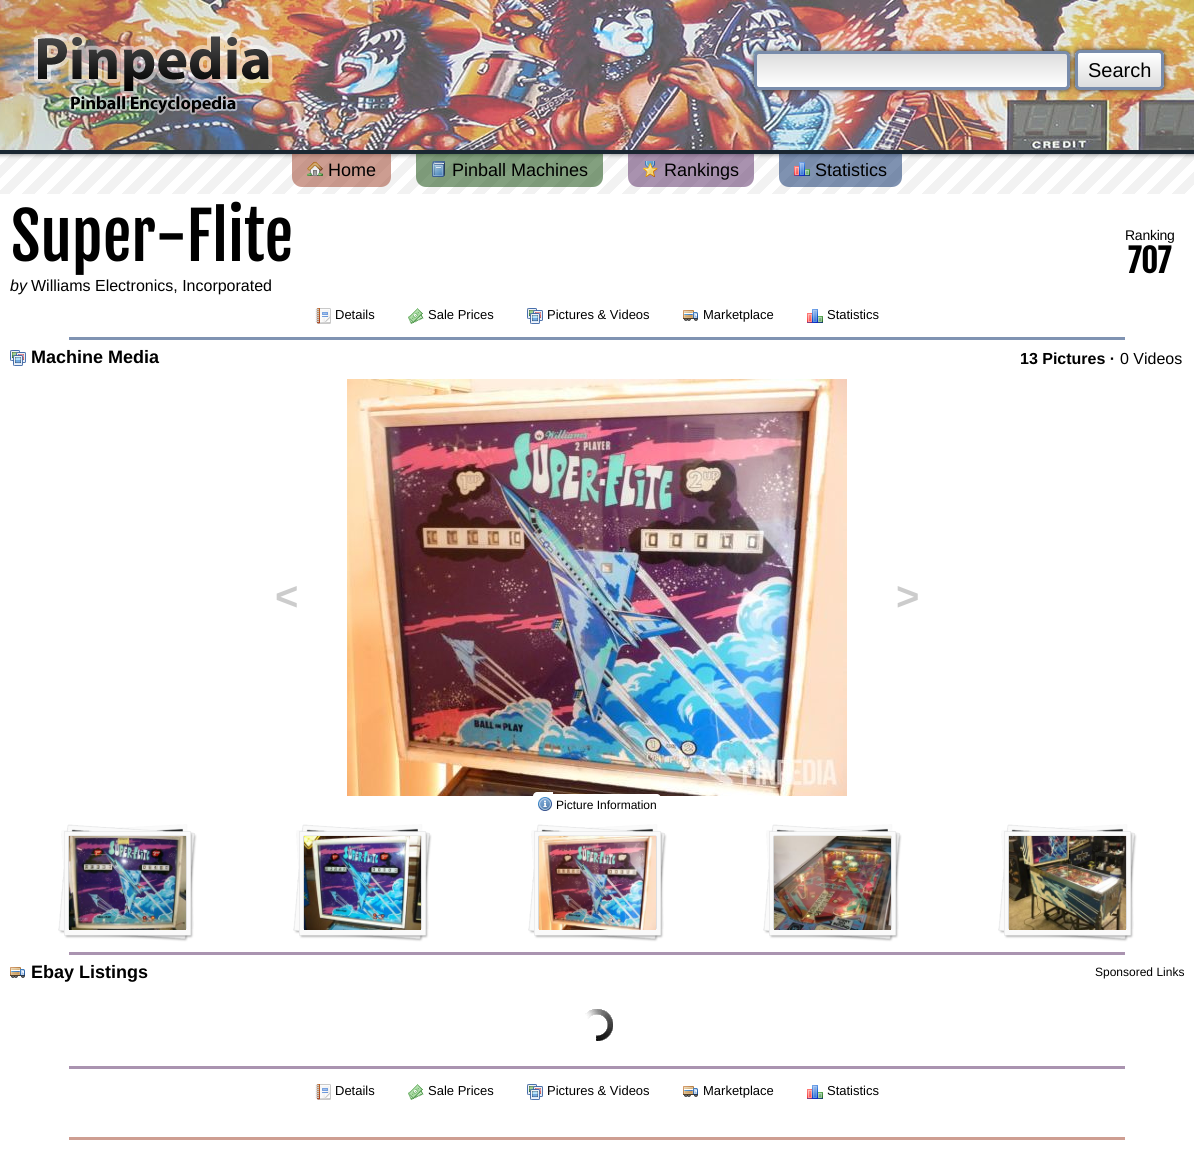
#include <cairo.h>
#include <math.h>
#include <stddef.h>


static void ink(cairo_t *ctx, unsigned color) {
    cairo_set_source_rgb(ctx, (color >> 16) / 255.0, (color >> 8 & 255) / 255.0, (color & 255) / 255.0);
}

static void write_spaced(cairo_t *ctx, double x, double y, const char *s, double letter, double word) {
    cairo_move_to(ctx, x, y);
    while (*s) {
        char ch[5] = {0};
        int n = 0;
        do ch[n++] = *s++; while ((*s & 0xC0) == 0x80);
        cairo_show_text(ctx, ch);
        cairo_rel_move_to(ctx, letter + word * (*ch == ' '), 0);
    }
}

static void round_path(cairo_t *ctx, double x, double y, double w, double h, double r) {
    cairo_new_sub_path(ctx);
    cairo_arc(ctx, x + w - r, y + h - r, r, 0, M_PI / 2);
    cairo_arc(ctx, x + r, y + h - r, r, M_PI / 2, M_PI);
    cairo_arc(ctx, x + r, y + r, r, M_PI, 1.5 * M_PI);
    cairo_arc(ctx, x + w - r, y + r, r, 1.5 * M_PI, 2 * M_PI);
    cairo_close_path(ctx);
}

static void blur_box(cairo_t *ctx, double x, double y, double w, double h, double r, double blur, double alpha) {
    cairo_push_group_with_content(ctx, CAIRO_CONTENT_ALPHA);
    cairo_set_operator(ctx, CAIRO_OPERATOR_SOURCE);
    for (int i = 15; i >= -15 && fmin(w, h) + blur * i / 3 > 0; i -= 2) {
        double e = blur * i / 6;
        cairo_set_source_rgba(ctx, 0, 0, 0, alpha * erfc((i - 1) / 8.5) / 2);
        round_path(ctx, x - e, y - e, w + 2 * e, h + 2 * e, fmax(0, fmin(r + e + blur * .6, fmin(w, h) / 2 + e)));
        cairo_fill(ctx);
    }
    cairo_pattern_t *soft = cairo_pop_group(ctx);
    cairo_mask(ctx, soft);
    cairo_pattern_destroy(soft);
}

static void paste(cairo_t *ctx, const char *path, double x, double y, double w, double h) {
    cairo_surface_t *image = cairo_image_surface_create_from_png(path);
    cairo_save(ctx);
    cairo_set_source_surface(ctx, image, x, y);
    cairo_rectangle(ctx, x, y, w, h);
    cairo_fill(ctx);
    cairo_restore(ctx);
    cairo_surface_destroy(image);
}

int main(void) {
    cairo_surface_t *surface = cairo_image_surface_create(CAIRO_FORMAT_RGB24, 1194, 1164);
    cairo_t *ctx = cairo_create(surface);
    cairo_font_options_t *options = cairo_font_options_create();
    cairo_font_options_set_hint_metrics(options, CAIRO_HINT_METRICS_OFF);
    cairo_font_options_set_hint_style(options, CAIRO_HINT_STYLE_NONE);
    cairo_set_font_options(ctx, options);
    cairo_set_miter_limit(ctx, 4);
    cairo_pattern_t *gradient;
    ink(ctx, 0xFFFFFF);
    cairo_paint(ctx);
    paste(ctx, "media/1.png", 0, 0, 1194, 150);
    paste(ctx, "media/2.png", 34, 32, 239, 83);
    ink(ctx, 0x333333);
    blur_box(ctx, 754, 51, 316, 39, 5, 2.5, 1);
    cairo_save(ctx);
    round_path(ctx, 754, 51, 316, 39, 5);
    cairo_clip(ctx);
    gradient = cairo_pattern_create_linear(757, 54, 757, 87);
    cairo_pattern_add_color_stop_rgba(gradient, 0, 0.867, 0.867, 0.867, 1);
    cairo_pattern_add_color_stop_rgba(gradient, 1, 1, 1, 1, 1);
    cairo_set_source(ctx, gradient);
    cairo_pattern_destroy(gradient);
    cairo_rectangle(ctx, 754, 54, 316, 33);
    cairo_fill(ctx);
    cairo_restore(ctx);
    round_path(ctx, 755.5, 52.5, 313, 36, 3.5);
    ink(ctx, 0x798CAB);
    cairo_set_line_width(ctx, 3);
    cairo_stroke(ctx);
    ink(ctx, 0x333333);
    blur_box(ctx, 1075, 50, 89, 40, 5, 2.5, 1);
    cairo_save(ctx);
    round_path(ctx, 1075, 50, 89, 40, 5);
    cairo_clip(ctx);
    gradient = cairo_pattern_create_linear(1078, 53, 1078, 87);
    cairo_pattern_add_color_stop_rgba(gradient, 0, 1, 1, 1, 1);
    cairo_pattern_add_color_stop_rgba(gradient, 1, 0.867, 0.867, 0.867, 1);
    cairo_set_source(ctx, gradient);
    cairo_pattern_destroy(gradient);
    cairo_rectangle(ctx, 1075, 53, 89, 34);
    cairo_fill(ctx);
    cairo_restore(ctx);
    round_path(ctx, 1076.5, 51.5, 86, 37, 3.5);
    ink(ctx, 0x798CAB);
    cairo_stroke(ctx);
    cairo_select_font_face(ctx, "Liberation Sans", CAIRO_FONT_SLANT_NORMAL, CAIRO_FONT_WEIGHT_NORMAL);
    cairo_set_font_size(ctx, 20);
    ink(ctx, 0x000000);
    cairo_move_to(ctx, 1088, 77);
    cairo_show_text(ctx, "Search");
    paste(ctx, "media/3.png", 0, 154, 1194, 40);
    ink(ctx, 0x1A2732);
    cairo_rectangle(ctx, 0, 150, 1194, 4);
    cairo_fill(ctx);
    cairo_set_source_rgba(ctx, 0.612, 0.235, 0.145, 0.5);
    cairo_new_path(ctx);
    cairo_move_to(ctx, 292, 154);
    cairo_line_to(ctx, 391, 154);
    cairo_line_to(ctx, 391, 177);
    cairo_curve_to(ctx, 391, 182.5, 386.5, 187, 381, 187);
    cairo_line_to(ctx, 302, 187);
    cairo_curve_to(ctx, 296.5, 187, 292, 182.5, 292, 177);
    cairo_close_path(ctx);
    cairo_fill(ctx);
    paste(ctx, "media/4.png", 307, 161, 16, 15);
    cairo_set_font_size(ctx, 18);
    ink(ctx, 0x000000);
    cairo_move_to(ctx, 328, 176);
    cairo_show_text(ctx, "Home");
    cairo_set_source_rgba(ctx, 0.035, 0.259, 0, 0.5);
    cairo_new_path(ctx);
    cairo_move_to(ctx, 416, 154);
    cairo_line_to(ctx, 603, 154);
    cairo_line_to(ctx, 603, 177);
    cairo_curve_to(ctx, 603, 182.5, 598.5, 187, 593, 187);
    cairo_line_to(ctx, 426, 187);
    cairo_curve_to(ctx, 420.5, 187, 416, 182.5, 416, 177);
    cairo_close_path(ctx);
    cairo_fill(ctx);
    paste(ctx, "media/5.png", 432, 161, 13, 16);
    ink(ctx, 0x000000);
    cairo_move_to(ctx, 452, 176);
    cairo_show_text(ctx, "Pinball Machines");
    cairo_set_source_rgba(ctx, 0.333, 0.153, 0.38, 0.5);
    cairo_new_path(ctx);
    cairo_move_to(ctx, 628, 154);
    cairo_line_to(ctx, 754, 154);
    cairo_line_to(ctx, 754, 177);
    cairo_curve_to(ctx, 754, 182.5, 749.5, 187, 744, 187);
    cairo_line_to(ctx, 638, 187);
    cairo_curve_to(ctx, 632.5, 187, 628, 182.5, 628, 177);
    cairo_close_path(ctx);
    cairo_fill(ctx);
    paste(ctx, "media/6.png", 643, 161, 15, 16);
    ink(ctx, 0x000000);
    cairo_move_to(ctx, 664, 176);
    cairo_show_text(ctx, "Rankings");
    cairo_set_source_rgba(ctx, 0, 0.149, 0.392, 0.5);
    cairo_new_path(ctx);
    cairo_move_to(ctx, 779, 154);
    cairo_line_to(ctx, 902, 154);
    cairo_line_to(ctx, 902, 177);
    cairo_curve_to(ctx, 902, 182.5, 897.5, 187, 892, 187);
    cairo_line_to(ctx, 789, 187);
    cairo_curve_to(ctx, 783.5, 187, 779, 182.5, 779, 177);
    cairo_close_path(ctx);
    cairo_fill(ctx);
    paste(ctx, "media/7.png", 794, 162, 16, 14);
    ink(ctx, 0x000000);
    cairo_move_to(ctx, 815, 176);
    cairo_show_text(ctx, "Statistics");
    cairo_select_font_face(ctx, "Fjalla One", CAIRO_FONT_SLANT_NORMAL, CAIRO_FONT_WEIGHT_NORMAL);
    cairo_set_font_size(ctx, 64);
    cairo_move_to(ctx, 11, 261);
    cairo_show_text(ctx, "Super-Flite");
    cairo_select_font_face(ctx, "Liberation Sans", CAIRO_FONT_SLANT_ITALIC, CAIRO_FONT_WEIGHT_NORMAL);
    cairo_set_font_size(ctx, 16);
    cairo_move_to(ctx, 10, 291);
    cairo_show_text(ctx, "by");
    cairo_select_font_face(ctx, "Liberation Sans", CAIRO_FONT_SLANT_NORMAL, CAIRO_FONT_WEIGHT_NORMAL);
    cairo_move_to(ctx, 31, 291);
    cairo_show_text(ctx, "Williams Electronics, Incorporated");
    cairo_set_font_size(ctx, 14);
    write_spaced(ctx, 1125, 240, "Ranking", -0.25, 0);
    cairo_select_font_face(ctx, "Fjalla One", CAIRO_FONT_SLANT_NORMAL, CAIRO_FONT_WEIGHT_BOLD);
    cairo_set_font_size(ctx, 32);
    cairo_move_to(ctx, 1128, 273);
    cairo_show_text(ctx, "707");
    paste(ctx, "media/8.png", 315, 308, 16, 16);
    cairo_select_font_face(ctx, "Liberation Sans", CAIRO_FONT_SLANT_NORMAL, CAIRO_FONT_WEIGHT_NORMAL);
    cairo_set_font_size(ctx, 13);
    cairo_move_to(ctx, 335, 319);
    cairo_show_text(ctx, "Details");
    paste(ctx, "media/9.png", 408, 308, 16, 16);
    cairo_move_to(ctx, 428, 319);
    cairo_show_text(ctx, "Sale Prices");
    paste(ctx, "media/10.png", 527, 308, 16, 16);
    cairo_move_to(ctx, 547, 319);
    cairo_show_text(ctx, "Pictures & Videos");
    paste(ctx, "media/11.png", 683, 310, 15, 11);
    cairo_move_to(ctx, 703, 319);
    cairo_show_text(ctx, "Marketplace");
    paste(ctx, "media/12.png", 807, 309, 16, 14);
    cairo_move_to(ctx, 827, 319);
    cairo_show_text(ctx, "Statistics");
    ink(ctx, 0x8093B2);
    cairo_rectangle(ctx, 69, 337, 1056, 3);
    cairo_fill(ctx);
    paste(ctx, "media/10.png", 10, 350, 16, 16);
    cairo_select_font_face(ctx, "Liberation Sans", CAIRO_FONT_SLANT_NORMAL, CAIRO_FONT_WEIGHT_BOLD);
    cairo_set_font_size(ctx, 18);
    ink(ctx, 0x000000);
    cairo_move_to(ctx, 31, 363);
    cairo_show_text(ctx, "Machine Media");
    cairo_set_font_size(ctx, 16);
    cairo_move_to(ctx, 1020, 364);
    cairo_show_text(ctx, "13 Pictures ·");
    cairo_select_font_face(ctx, "Liberation Sans", CAIRO_FONT_SLANT_NORMAL, CAIRO_FONT_WEIGHT_NORMAL);
    cairo_move_to(ctx, 1120, 364);
    cairo_show_text(ctx, "0 Videos");
    cairo_select_font_face(ctx, "Liberation Sans", CAIRO_FONT_SLANT_NORMAL, CAIRO_FONT_WEIGHT_BOLD);
    cairo_set_font_size(ctx, 40);
    ink(ctx, 0xCCCCCC);
    cairo_move_to(ctx, 275, 610);
    cairo_show_text(ctx, "<");
    cairo_move_to(ctx, 896, 610);
    cairo_show_text(ctx, ">");
    paste(ctx, "media/13.png", 347, 379, 500, 417);
    ink(ctx, 0xFFFFFF);
    cairo_new_path(ctx);
    cairo_move_to(ctx, 537, 792);
    cairo_line_to(ctx, 553, 792);
    cairo_line_to(ctx, 553, 816);
    cairo_line_to(ctx, 533, 816);
    cairo_line_to(ctx, 533, 796);
    cairo_curve_to(ctx, 533, 794, 535, 792, 537, 792);
    cairo_close_path(ctx);
    cairo_fill(ctx);
    paste(ctx, "media/14.png", 538, 797, 14, 14);
    cairo_new_path(ctx);
    cairo_move_to(ctx, 556, 794);
    cairo_line_to(ctx, 657, 794);
    cairo_curve_to(ctx, 659, 794, 661, 796, 661, 798);
    cairo_line_to(ctx, 661, 816);
    cairo_line_to(ctx, 556, 816);
    cairo_close_path(ctx);
    cairo_fill(ctx);
    cairo_select_font_face(ctx, "Liberation Sans", CAIRO_FONT_SLANT_NORMAL, CAIRO_FONT_WEIGHT_NORMAL);
    cairo_set_font_size(ctx, 12);
    ink(ctx, 0x000000);
    cairo_move_to(ctx, 556, 809);
    cairo_show_text(ctx, "Picture Information");
    ink(ctx, 0xFFFFFF);
    cairo_rectangle(ctx, 553, 794, 3, 2);
    cairo_fill(ctx);
    paste(ctx, "media/15.png", 58, 824, 139, 118);
    paste(ctx, "media/16.png", 69, 836, 117, 94);
    paste(ctx, "media/15.png", 293, 824, 139, 118);
    paste(ctx, "media/17.png", 304, 836, 117, 94);
    paste(ctx, "media/15.png", 528, 824, 139, 118);
    paste(ctx, "media/18.png", 539, 836, 117, 94);
    paste(ctx, "media/15.png", 763, 824, 139, 118);
    paste(ctx, "media/19.png", 774, 836, 117, 94);
    paste(ctx, "media/15.png", 998, 824, 139, 118);
    paste(ctx, "media/20.png", 1009, 836, 117, 94);
    ink(ctx, 0xAA93B0);
    cairo_rectangle(ctx, 69, 952, 1056, 3);
    cairo_fill(ctx);
    paste(ctx, "media/11.png", 10, 967, 15, 11);
    cairo_select_font_face(ctx, "Liberation Sans", CAIRO_FONT_SLANT_NORMAL, CAIRO_FONT_WEIGHT_BOLD);
    cairo_set_font_size(ctx, 18);
    ink(ctx, 0x000000);
    cairo_move_to(ctx, 31, 978);
    cairo_show_text(ctx, "Ebay Listings");
    cairo_select_font_face(ctx, "Liberation Sans", CAIRO_FONT_SLANT_NORMAL, CAIRO_FONT_WEIGHT_NORMAL);
    cairo_set_font_size(ctx, 12);
    cairo_move_to(ctx, 1095, 976);
    cairo_show_text(ctx, "Sponsored Links");
    paste(ctx, "media/21.png", 585, 1009, 28, 32);
    ink(ctx, 0xAA93B0);
    cairo_rectangle(ctx, 69, 1066, 1056, 3);
    cairo_fill(ctx);
    paste(ctx, "media/8.png", 315, 1084, 16, 16);
    cairo_set_font_size(ctx, 13);
    ink(ctx, 0x000000);
    cairo_move_to(ctx, 335, 1095);
    cairo_show_text(ctx, "Details");
    paste(ctx, "media/9.png", 408, 1084, 16, 16);
    cairo_move_to(ctx, 428, 1095);
    cairo_show_text(ctx, "Sale Prices");
    paste(ctx, "media/10.png", 527, 1084, 16, 16);
    cairo_move_to(ctx, 547, 1095);
    cairo_show_text(ctx, "Pictures & Videos");
    paste(ctx, "media/11.png", 683, 1086, 15, 11);
    cairo_move_to(ctx, 703, 1095);
    cairo_show_text(ctx, "Marketplace");
    paste(ctx, "media/12.png", 807, 1085, 16, 14);
    cairo_move_to(ctx, 827, 1095);
    cairo_show_text(ctx, "Statistics");
    ink(ctx, 0xCE9E92);
    cairo_rectangle(ctx, 69, 1137, 1056, 3);
    cairo_fill(ctx);
    cairo_surface_write_to_png(surface, "image.png");
    cairo_font_options_destroy(options);
    cairo_destroy(ctx);
    cairo_surface_destroy(surface);
    return 0;
}
